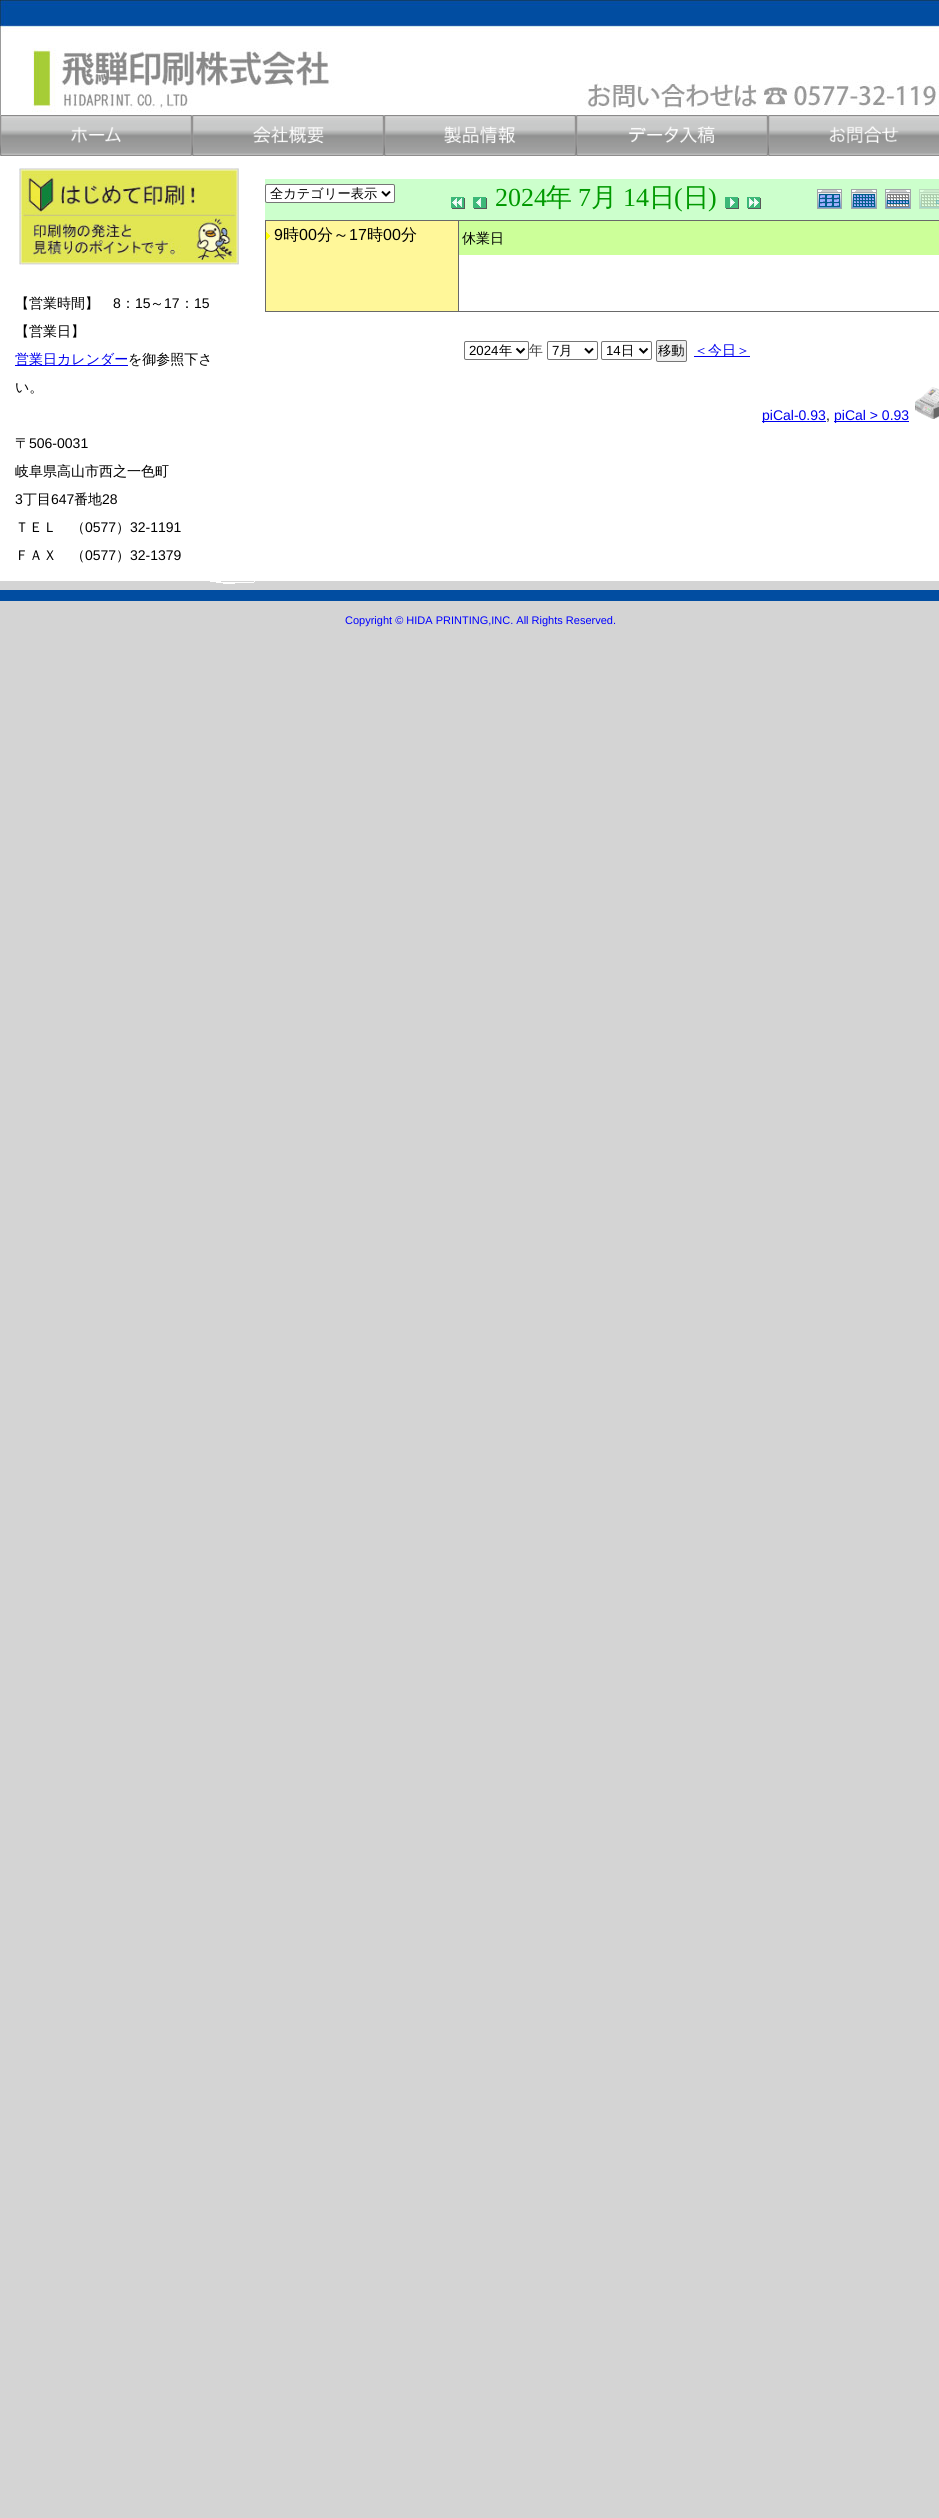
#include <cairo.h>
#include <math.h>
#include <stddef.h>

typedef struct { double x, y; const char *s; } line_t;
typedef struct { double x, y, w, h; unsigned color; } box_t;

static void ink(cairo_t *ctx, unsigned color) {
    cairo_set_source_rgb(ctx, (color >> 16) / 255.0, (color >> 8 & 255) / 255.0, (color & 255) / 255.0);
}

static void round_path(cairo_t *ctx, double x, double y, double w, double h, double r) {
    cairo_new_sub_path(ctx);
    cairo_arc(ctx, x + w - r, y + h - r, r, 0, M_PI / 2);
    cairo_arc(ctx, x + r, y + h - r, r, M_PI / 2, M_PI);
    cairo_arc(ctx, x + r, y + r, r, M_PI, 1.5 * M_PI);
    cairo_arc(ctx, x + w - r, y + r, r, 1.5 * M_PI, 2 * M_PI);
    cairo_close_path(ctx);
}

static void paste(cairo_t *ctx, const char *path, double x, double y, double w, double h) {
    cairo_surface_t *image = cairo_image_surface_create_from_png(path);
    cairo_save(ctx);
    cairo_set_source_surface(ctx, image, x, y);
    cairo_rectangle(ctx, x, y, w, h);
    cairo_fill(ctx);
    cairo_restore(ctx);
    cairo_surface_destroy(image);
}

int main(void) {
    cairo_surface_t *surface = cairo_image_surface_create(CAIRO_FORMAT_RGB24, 939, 2518);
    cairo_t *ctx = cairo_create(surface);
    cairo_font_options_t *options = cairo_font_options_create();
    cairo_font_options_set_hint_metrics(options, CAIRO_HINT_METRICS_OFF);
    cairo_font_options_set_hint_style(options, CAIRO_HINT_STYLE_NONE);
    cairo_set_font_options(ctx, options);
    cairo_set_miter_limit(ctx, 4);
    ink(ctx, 0xD4D4D4);
    cairo_paint(ctx);
    paste(ctx, "media/1.png", 0, 0, 939, 115);
    paste(ctx, "media/2.png", 0, 115, 192, 41);
    paste(ctx, "media/3.png", 192, 115, 192, 41);
    paste(ctx, "media/4.png", 384, 115, 192, 41);
    paste(ctx, "media/5.png", 576, 115, 192, 41);
    paste(ctx, "media/6.png", 768, 115, 171, 41);
    ink(ctx, 0xFFFFFF);
    cairo_rectangle(ctx, 0, 156, 939, 425);
    cairo_fill(ctx);
    paste(ctx, "media/7.png", 19, 168, 220, 97);
    cairo_select_font_face(ctx, "WenQuanYi Zen Hei Medium", CAIRO_FONT_SLANT_NORMAL, CAIRO_FONT_WEIGHT_NORMAL);
    cairo_set_font_size(ctx, 14);
    ink(ctx, 0x000000);
    cairo_move_to(ctx, 15, 308);
    cairo_show_text(ctx, "【営業時間】");
    cairo_select_font_face(ctx, "Liberation Sans", CAIRO_FONT_SLANT_NORMAL, CAIRO_FONT_WEIGHT_NORMAL);
    cairo_move_to(ctx, 113, 308);
    cairo_show_text(ctx, "8");
    cairo_select_font_face(ctx, "WenQuanYi Zen Hei Medium", CAIRO_FONT_SLANT_NORMAL, CAIRO_FONT_WEIGHT_NORMAL);
    cairo_move_to(ctx, 121, 308);
    cairo_show_text(ctx, "：");
    cairo_select_font_face(ctx, "Liberation Sans", CAIRO_FONT_SLANT_NORMAL, CAIRO_FONT_WEIGHT_NORMAL);
    cairo_move_to(ctx, 135, 308);
    cairo_show_text(ctx, "15");
    cairo_select_font_face(ctx, "WenQuanYi Zen Hei Medium", CAIRO_FONT_SLANT_NORMAL, CAIRO_FONT_WEIGHT_NORMAL);
    cairo_move_to(ctx, 150, 308);
    cairo_show_text(ctx, "～");
    cairo_select_font_face(ctx, "Liberation Sans", CAIRO_FONT_SLANT_NORMAL, CAIRO_FONT_WEIGHT_NORMAL);
    cairo_move_to(ctx, 164, 308);
    cairo_show_text(ctx, "17");
    cairo_select_font_face(ctx, "WenQuanYi Zen Hei Medium", CAIRO_FONT_SLANT_NORMAL, CAIRO_FONT_WEIGHT_NORMAL);
    cairo_move_to(ctx, 180, 308);
    cairo_show_text(ctx, "：");
    cairo_select_font_face(ctx, "Liberation Sans", CAIRO_FONT_SLANT_NORMAL, CAIRO_FONT_WEIGHT_NORMAL);
    cairo_move_to(ctx, 194, 308);
    cairo_show_text(ctx, "15");
    cairo_select_font_face(ctx, "WenQuanYi Zen Hei Medium", CAIRO_FONT_SLANT_NORMAL, CAIRO_FONT_WEIGHT_NORMAL);
    cairo_move_to(ctx, 15, 336);
    cairo_show_text(ctx, "【営業日】");
    ink(ctx, 0x0000EE);
    cairo_rectangle(ctx, 15, 365, 113, 1);
    cairo_fill(ctx);
    cairo_move_to(ctx, 15, 364);
    cairo_show_text(ctx, "営業日カレンダー");
    ink(ctx, 0x000000);
    {
        static const line_t items[] = {
            {128, 364, "を御参照下さ"},
            {15, 392, "い。"},
            {15, 448, "〒"},
        };
        for (size_t i = 0; i < sizeof items / sizeof *items; i++) {
            cairo_move_to(ctx, items[i].x, items[i].y);
            cairo_show_text(ctx, items[i].s);
        }
    }
    cairo_select_font_face(ctx, "Liberation Sans", CAIRO_FONT_SLANT_NORMAL, CAIRO_FONT_WEIGHT_NORMAL);
    cairo_move_to(ctx, 29, 448);
    cairo_show_text(ctx, "506-0031");
    cairo_select_font_face(ctx, "WenQuanYi Zen Hei Medium", CAIRO_FONT_SLANT_NORMAL, CAIRO_FONT_WEIGHT_NORMAL);
    cairo_move_to(ctx, 15, 476);
    cairo_show_text(ctx, "岐阜県高山市西之一色町");
    cairo_select_font_face(ctx, "Liberation Sans", CAIRO_FONT_SLANT_NORMAL, CAIRO_FONT_WEIGHT_NORMAL);
    cairo_move_to(ctx, 15, 504);
    cairo_show_text(ctx, "3");
    cairo_select_font_face(ctx, "WenQuanYi Zen Hei Medium", CAIRO_FONT_SLANT_NORMAL, CAIRO_FONT_WEIGHT_NORMAL);
    cairo_move_to(ctx, 23, 504);
    cairo_show_text(ctx, "丁目");
    cairo_select_font_face(ctx, "Liberation Sans", CAIRO_FONT_SLANT_NORMAL, CAIRO_FONT_WEIGHT_NORMAL);
    cairo_move_to(ctx, 51, 504);
    cairo_show_text(ctx, "647");
    cairo_select_font_face(ctx, "WenQuanYi Zen Hei Medium", CAIRO_FONT_SLANT_NORMAL, CAIRO_FONT_WEIGHT_NORMAL);
    cairo_move_to(ctx, 74, 504);
    cairo_show_text(ctx, "番地");
    cairo_select_font_face(ctx, "Liberation Sans", CAIRO_FONT_SLANT_NORMAL, CAIRO_FONT_WEIGHT_NORMAL);
    cairo_move_to(ctx, 102, 504);
    cairo_show_text(ctx, "28");
    cairo_select_font_face(ctx, "WenQuanYi Zen Hei Medium", CAIRO_FONT_SLANT_NORMAL, CAIRO_FONT_WEIGHT_NORMAL);
    cairo_move_to(ctx, 15, 532);
    cairo_show_text(ctx, "ＴＥＬ　（");
    cairo_select_font_face(ctx, "Liberation Sans", CAIRO_FONT_SLANT_NORMAL, CAIRO_FONT_WEIGHT_NORMAL);
    cairo_move_to(ctx, 85, 532);
    cairo_show_text(ctx, "0577");
    cairo_select_font_face(ctx, "WenQuanYi Zen Hei Medium", CAIRO_FONT_SLANT_NORMAL, CAIRO_FONT_WEIGHT_NORMAL);
    cairo_move_to(ctx, 116, 532);
    cairo_show_text(ctx, "）");
    cairo_select_font_face(ctx, "Liberation Sans", CAIRO_FONT_SLANT_NORMAL, CAIRO_FONT_WEIGHT_NORMAL);
    cairo_move_to(ctx, 130, 532);
    cairo_show_text(ctx, "32-1191");
    cairo_select_font_face(ctx, "WenQuanYi Zen Hei Medium", CAIRO_FONT_SLANT_NORMAL, CAIRO_FONT_WEIGHT_NORMAL);
    cairo_move_to(ctx, 15, 560);
    cairo_show_text(ctx, "ＦＡＸ　（");
    cairo_select_font_face(ctx, "Liberation Sans", CAIRO_FONT_SLANT_NORMAL, CAIRO_FONT_WEIGHT_NORMAL);
    cairo_move_to(ctx, 85, 560);
    cairo_show_text(ctx, "0577");
    cairo_select_font_face(ctx, "WenQuanYi Zen Hei Medium", CAIRO_FONT_SLANT_NORMAL, CAIRO_FONT_WEIGHT_NORMAL);
    cairo_move_to(ctx, 116, 560);
    cairo_show_text(ctx, "）");
    cairo_select_font_face(ctx, "Liberation Sans", CAIRO_FONT_SLANT_NORMAL, CAIRO_FONT_WEIGHT_NORMAL);
    cairo_move_to(ctx, 130, 560);
    cairo_show_text(ctx, "32-1379");
    ink(ctx, 0xFFFFFF);
    cairo_rectangle(ctx, 254, 581, 1, 1);
    cairo_fill(ctx);
    ink(ctx, 0xCCFFCC);
    cairo_rectangle(ctx, 265, 179, 674, 41);
    cairo_fill(ctx);
    ink(ctx, 0xFFFFFF);
    round_path(ctx, 265.5, 184.5, 129, 18, 1.5);
    cairo_fill_preserve(ctx);
    ink(ctx, 0x767676);
    cairo_set_line_width(ctx, 1);
    cairo_stroke(ctx);
    cairo_new_path(ctx);
    cairo_move_to(ctx, 382, 191.5);
    cairo_line_to(ctx, 386, 195.5);
    cairo_line_to(ctx, 390, 191.5);
    ink(ctx, 0x000000);
    cairo_set_line_width(ctx, 2);
    cairo_stroke(ctx);
    cairo_select_font_face(ctx, "WenQuanYi Zen Hei Medium", CAIRO_FONT_SLANT_NORMAL, CAIRO_FONT_WEIGHT_NORMAL);
    cairo_set_font_size(ctx, 13.25);
    cairo_move_to(ctx, 270, 198);
    cairo_show_text(ctx, "全カテゴリー表示");
    paste(ctx, "media/8.png", 451, 197, 14, 12);
    paste(ctx, "media/9.png", 473, 197, 14, 12);
    cairo_select_font_face(ctx, "Liberation Serif", CAIRO_FONT_SLANT_NORMAL, CAIRO_FONT_WEIGHT_NORMAL);
    cairo_set_font_size(ctx, 26);
    ink(ctx, 0x009900);
    cairo_move_to(ctx, 495, 206);
    cairo_show_text(ctx, "2024");
    cairo_select_font_face(ctx, "WenQuanYi Zen Hei Medium", CAIRO_FONT_SLANT_NORMAL, CAIRO_FONT_WEIGHT_NORMAL);
    cairo_move_to(ctx, 546, 206);
    cairo_show_text(ctx, "年");
    cairo_select_font_face(ctx, "Liberation Serif", CAIRO_FONT_SLANT_NORMAL, CAIRO_FONT_WEIGHT_NORMAL);
    cairo_move_to(ctx, 578, 206);
    cairo_show_text(ctx, "7");
    cairo_select_font_face(ctx, "WenQuanYi Zen Hei Medium", CAIRO_FONT_SLANT_NORMAL, CAIRO_FONT_WEIGHT_NORMAL);
    cairo_move_to(ctx, 591, 206);
    cairo_show_text(ctx, "月");
    cairo_select_font_face(ctx, "Liberation Serif", CAIRO_FONT_SLANT_NORMAL, CAIRO_FONT_WEIGHT_NORMAL);
    cairo_move_to(ctx, 623, 206);
    cairo_show_text(ctx, "14");
    cairo_select_font_face(ctx, "WenQuanYi Zen Hei Medium", CAIRO_FONT_SLANT_NORMAL, CAIRO_FONT_WEIGHT_NORMAL);
    cairo_move_to(ctx, 649, 206);
    cairo_show_text(ctx, "日");
    cairo_select_font_face(ctx, "Liberation Serif", CAIRO_FONT_SLANT_NORMAL, CAIRO_FONT_WEIGHT_NORMAL);
    cairo_move_to(ctx, 674, 206);
    cairo_show_text(ctx, "(");
    cairo_select_font_face(ctx, "WenQuanYi Zen Hei Medium", CAIRO_FONT_SLANT_NORMAL, CAIRO_FONT_WEIGHT_NORMAL);
    cairo_move_to(ctx, 683, 206);
    cairo_show_text(ctx, "日");
    cairo_select_font_face(ctx, "Liberation Serif", CAIRO_FONT_SLANT_NORMAL, CAIRO_FONT_WEIGHT_NORMAL);
    cairo_move_to(ctx, 708, 206);
    cairo_show_text(ctx, ")");
    paste(ctx, "media/10.png", 725, 197, 14, 12);
    paste(ctx, "media/11.png", 747, 197, 14, 12);
    paste(ctx, "media/12.png", 817, 189, 25, 20);
    paste(ctx, "media/13.png", 851, 189, 26, 20);
    paste(ctx, "media/14.png", 885, 189, 26, 20);
    paste(ctx, "media/15.png", 919, 189, 20, 20);
    {
        static const box_t items[] = {
            {266, 221, 192, 90, 0xFFF799},
            {458, 220, 481, 1, 0x696969},
            {458, 311, 481, 1, 0x696969},
            {458, 220, 1, 92, 0x696969},
            {265, 220, 194, 1, 0x696969},
            {265, 311, 194, 1, 0x696969},
            {265, 220, 1, 92, 0x696969},
        };
        for (size_t i = 0; i < sizeof items / sizeof *items; i++) {
            ink(ctx, items[i].color);
            cairo_rectangle(ctx, items[i].x, items[i].y, items[i].w, items[i].h);
            cairo_fill(ctx);
        }
    }
    paste(ctx, "media/16.png", 266, 232, 4, 8);
    cairo_select_font_face(ctx, "Liberation Sans", CAIRO_FONT_SLANT_NORMAL, CAIRO_FONT_WEIGHT_NORMAL);
    cairo_set_font_size(ctx, 16);
    ink(ctx, 0x000000);
    cairo_move_to(ctx, 274, 240);
    cairo_show_text(ctx, "9");
    cairo_select_font_face(ctx, "WenQuanYi Zen Hei Medium", CAIRO_FONT_SLANT_NORMAL, CAIRO_FONT_WEIGHT_NORMAL);
    cairo_move_to(ctx, 283, 240);
    cairo_show_text(ctx, "時");
    cairo_select_font_face(ctx, "Liberation Sans", CAIRO_FONT_SLANT_NORMAL, CAIRO_FONT_WEIGHT_NORMAL);
    cairo_move_to(ctx, 299, 240);
    cairo_show_text(ctx, "00");
    cairo_select_font_face(ctx, "WenQuanYi Zen Hei Medium", CAIRO_FONT_SLANT_NORMAL, CAIRO_FONT_WEIGHT_NORMAL);
    cairo_move_to(ctx, 317, 240);
    cairo_show_text(ctx, "分～");
    cairo_select_font_face(ctx, "Liberation Sans", CAIRO_FONT_SLANT_NORMAL, CAIRO_FONT_WEIGHT_NORMAL);
    cairo_move_to(ctx, 349, 240);
    cairo_show_text(ctx, "17");
    cairo_select_font_face(ctx, "WenQuanYi Zen Hei Medium", CAIRO_FONT_SLANT_NORMAL, CAIRO_FONT_WEIGHT_NORMAL);
    cairo_move_to(ctx, 367, 240);
    cairo_show_text(ctx, "時");
    cairo_select_font_face(ctx, "Liberation Sans", CAIRO_FONT_SLANT_NORMAL, CAIRO_FONT_WEIGHT_NORMAL);
    cairo_move_to(ctx, 383, 240);
    cairo_show_text(ctx, "00");
    cairo_select_font_face(ctx, "WenQuanYi Zen Hei Medium", CAIRO_FONT_SLANT_NORMAL, CAIRO_FONT_WEIGHT_NORMAL);
    cairo_move_to(ctx, 401, 240);
    cairo_show_text(ctx, "分");
    ink(ctx, 0xCCFF99);
    cairo_rectangle(ctx, 459, 221, 480, 34);
    cairo_fill(ctx);
    cairo_set_font_size(ctx, 14);
    ink(ctx, 0x000000);
    cairo_move_to(ctx, 462, 243);
    cairo_show_text(ctx, "休業日");
    round_path(ctx, 464.5, 341.5, 64, 18, 1.5);
    ink(ctx, 0x767676);
    cairo_set_line_width(ctx, 1);
    cairo_stroke(ctx);
    cairo_new_path(ctx);
    cairo_move_to(ctx, 516.5, 348.5);
    cairo_line_to(ctx, 520.5, 352.5);
    cairo_line_to(ctx, 524.5, 348.5);
    ink(ctx, 0x000000);
    cairo_set_line_width(ctx, 2);
    cairo_stroke(ctx);
    cairo_select_font_face(ctx, "Liberation Sans", CAIRO_FONT_SLANT_NORMAL, CAIRO_FONT_WEIGHT_NORMAL);
    cairo_set_font_size(ctx, 13.25);
    cairo_move_to(ctx, 469, 355);
    cairo_show_text(ctx, "2024");
    cairo_select_font_face(ctx, "WenQuanYi Zen Hei Medium", CAIRO_FONT_SLANT_NORMAL, CAIRO_FONT_WEIGHT_NORMAL);
    cairo_move_to(ctx, 499, 355);
    cairo_show_text(ctx, "年");
    cairo_set_font_size(ctx, 14);
    ink(ctx, 0x444444);
    cairo_move_to(ctx, 529, 355);
    cairo_show_text(ctx, "年");
    round_path(ctx, 547.5, 341.5, 50, 18, 1.5);
    ink(ctx, 0x767676);
    cairo_set_line_width(ctx, 1);
    cairo_stroke(ctx);
    cairo_new_path(ctx);
    cairo_move_to(ctx, 585, 348.5);
    cairo_line_to(ctx, 589, 352.5);
    cairo_line_to(ctx, 593, 348.5);
    ink(ctx, 0x000000);
    cairo_set_line_width(ctx, 2);
    cairo_stroke(ctx);
    cairo_select_font_face(ctx, "Liberation Sans", CAIRO_FONT_SLANT_NORMAL, CAIRO_FONT_WEIGHT_NORMAL);
    cairo_set_font_size(ctx, 13.25);
    cairo_move_to(ctx, 552, 355);
    cairo_show_text(ctx, "7");
    cairo_select_font_face(ctx, "WenQuanYi Zen Hei Medium", CAIRO_FONT_SLANT_NORMAL, CAIRO_FONT_WEIGHT_NORMAL);
    cairo_move_to(ctx, 559, 355);
    cairo_show_text(ctx, "月");
    round_path(ctx, 601.5, 341.5, 50, 18, 1.5);
    ink(ctx, 0x767676);
    cairo_set_line_width(ctx, 1);
    cairo_stroke(ctx);
    cairo_new_path(ctx);
    cairo_move_to(ctx, 639.5, 348.5);
    cairo_line_to(ctx, 643.5, 352.5);
    cairo_line_to(ctx, 647.5, 348.5);
    ink(ctx, 0x000000);
    cairo_set_line_width(ctx, 2);
    cairo_stroke(ctx);
    cairo_select_font_face(ctx, "Liberation Sans", CAIRO_FONT_SLANT_NORMAL, CAIRO_FONT_WEIGHT_NORMAL);
    cairo_move_to(ctx, 606, 355);
    cairo_show_text(ctx, "14");
    cairo_select_font_face(ctx, "WenQuanYi Zen Hei Medium", CAIRO_FONT_SLANT_NORMAL, CAIRO_FONT_WEIGHT_NORMAL);
    cairo_move_to(ctx, 621, 355);
    cairo_show_text(ctx, "日");
    ink(ctx, 0xEFEFEF);
    round_path(ctx, 656.5, 340.5, 30, 21, 1.5);
    cairo_fill_preserve(ctx);
    ink(ctx, 0x767676);
    cairo_set_line_width(ctx, 1);
    cairo_stroke(ctx);
    ink(ctx, 0x000000);
    cairo_move_to(ctx, 658, 355);
    cairo_show_text(ctx, "移動");
    ink(ctx, 0x0000EE);
    cairo_rectangle(ctx, 694, 356, 56, 1);
    cairo_fill(ctx);
    cairo_set_font_size(ctx, 14);
    cairo_move_to(ctx, 694, 355);
    cairo_show_text(ctx, "＜今日＞");
    cairo_rectangle(ctx, 762, 421, 64, 1);
    cairo_fill(ctx);
    cairo_select_font_face(ctx, "Liberation Sans", CAIRO_FONT_SLANT_NORMAL, CAIRO_FONT_WEIGHT_NORMAL);
    cairo_move_to(ctx, 762, 420);
    cairo_show_text(ctx, "piCal-0.93");
    ink(ctx, 0x000000);
    cairo_move_to(ctx, 826, 420);
    cairo_show_text(ctx, ",");
    ink(ctx, 0x0000EE);
    cairo_rectangle(ctx, 834, 421, 75, 1);
    cairo_fill(ctx);
    cairo_move_to(ctx, 834, 420);
    cairo_show_text(ctx, "piCal > 0.93");
    paste(ctx, "media/17.png", 915, 387, 24, 32);
    paste(ctx, "media/18.png", 0, 581, 939, 20);
    cairo_set_font_size(ctx, 11);
    ink(ctx, 0x0000FF);
    cairo_move_to(ctx, 345, 624);
    cairo_show_text(ctx, "Copyright © HIDA PRINTING,INC. All Rights Reserved.");
    cairo_surface_write_to_png(surface, "image.png");
    cairo_font_options_destroy(options);
    cairo_destroy(ctx);
    cairo_surface_destroy(surface);
    return 0;
}
